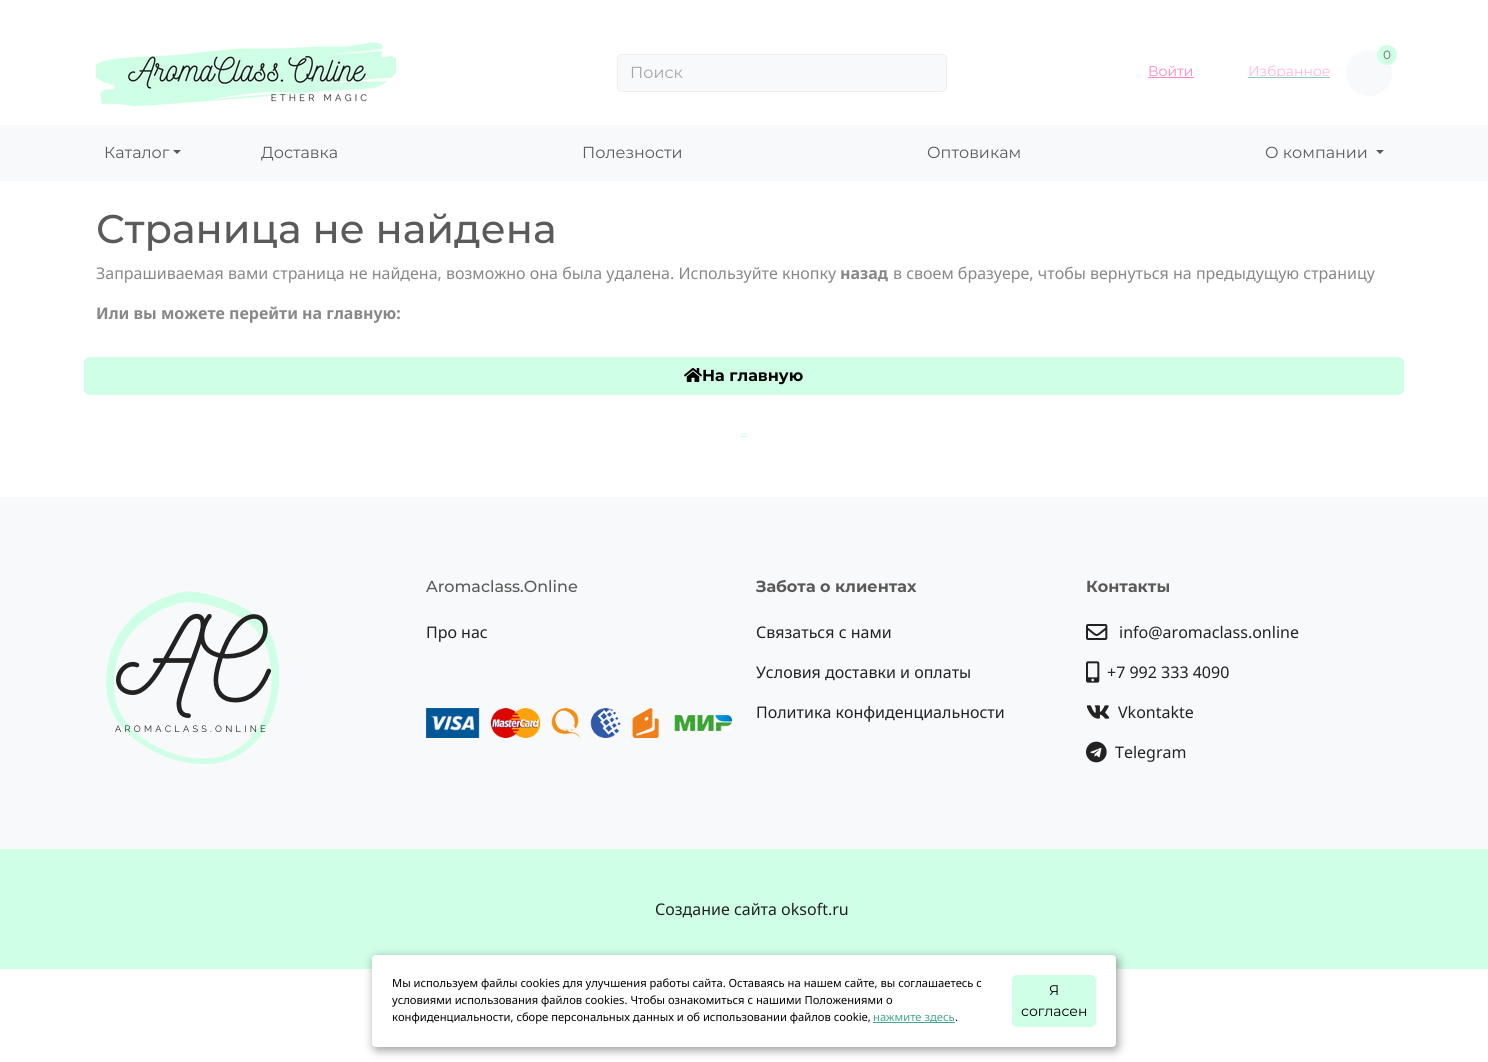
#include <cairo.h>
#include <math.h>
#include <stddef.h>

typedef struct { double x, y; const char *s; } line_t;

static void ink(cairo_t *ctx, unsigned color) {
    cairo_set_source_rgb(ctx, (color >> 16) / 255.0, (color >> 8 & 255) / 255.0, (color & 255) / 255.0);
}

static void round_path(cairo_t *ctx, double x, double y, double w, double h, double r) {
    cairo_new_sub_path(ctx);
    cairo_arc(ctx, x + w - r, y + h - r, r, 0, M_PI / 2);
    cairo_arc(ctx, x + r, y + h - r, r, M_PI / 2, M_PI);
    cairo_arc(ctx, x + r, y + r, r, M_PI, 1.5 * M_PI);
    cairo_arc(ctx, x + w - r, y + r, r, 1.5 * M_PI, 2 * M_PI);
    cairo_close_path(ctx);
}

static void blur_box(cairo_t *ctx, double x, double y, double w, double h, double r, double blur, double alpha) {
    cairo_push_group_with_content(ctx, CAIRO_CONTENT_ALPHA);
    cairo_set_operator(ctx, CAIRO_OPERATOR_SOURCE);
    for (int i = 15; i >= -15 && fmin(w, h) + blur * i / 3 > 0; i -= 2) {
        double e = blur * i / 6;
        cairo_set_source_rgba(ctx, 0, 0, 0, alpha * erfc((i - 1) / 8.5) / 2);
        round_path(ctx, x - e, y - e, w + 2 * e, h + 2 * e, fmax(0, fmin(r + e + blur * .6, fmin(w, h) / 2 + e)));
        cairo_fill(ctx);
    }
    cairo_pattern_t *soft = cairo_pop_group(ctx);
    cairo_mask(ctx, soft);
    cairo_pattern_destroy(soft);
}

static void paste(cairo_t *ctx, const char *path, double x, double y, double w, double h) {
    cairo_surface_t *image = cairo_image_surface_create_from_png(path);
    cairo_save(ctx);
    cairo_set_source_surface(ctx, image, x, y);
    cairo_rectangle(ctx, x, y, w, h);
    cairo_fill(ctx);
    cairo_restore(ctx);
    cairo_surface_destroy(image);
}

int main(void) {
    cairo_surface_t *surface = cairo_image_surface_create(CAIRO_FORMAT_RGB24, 1488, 1062);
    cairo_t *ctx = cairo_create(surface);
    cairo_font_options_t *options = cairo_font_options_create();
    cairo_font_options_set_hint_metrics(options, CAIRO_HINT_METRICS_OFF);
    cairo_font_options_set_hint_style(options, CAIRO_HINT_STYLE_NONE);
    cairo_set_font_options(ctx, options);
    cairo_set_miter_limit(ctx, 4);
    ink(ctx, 0xFFFFFF);
    cairo_paint(ctx);
    paste(ctx, "media/1.png", 96, 42, 300, 65);
    ink(ctx, 0xF8F9FA);
    round_path(ctx, 617.5, 54.5, 329, 37, 4.5);
    cairo_fill_preserve(ctx);
    ink(ctx, 0xECEEEF);
    cairo_set_line_width(ctx, 1);
    cairo_stroke(ctx);
    cairo_select_font_face(ctx, "Montserrat", CAIRO_FONT_SLANT_NORMAL, CAIRO_FONT_WEIGHT_NORMAL);
    cairo_set_font_size(ctx, 16);
    ink(ctx, 0xA4A4A5);
    cairo_move_to(ctx, 630, 78);
    cairo_show_text(ctx, "Поиск");
    ink(ctx, 0xF8F9FA);
    cairo_new_path(ctx);
    cairo_arc(ctx, 1369, 73, 23, 0, 2 * M_PI);
    cairo_fill(ctx);
    ink(ctx, 0xCFFFE5);
    cairo_arc(ctx, 1387, 55, 10, 0, 2 * M_PI);
    cairo_fill(ctx);
    cairo_select_font_face(ctx, "Montserrat Medium", CAIRO_FONT_SLANT_NORMAL, CAIRO_FONT_WEIGHT_NORMAL);
    cairo_set_font_size(ctx, 12);
    ink(ctx, 0x888888);
    cairo_move_to(ctx, 1383, 59);
    cairo_show_text(ctx, "0");
    cairo_select_font_face(ctx, "Montserrat", CAIRO_FONT_SLANT_NORMAL, CAIRO_FONT_WEIGHT_NORMAL);
    cairo_set_font_size(ctx, 14);
    ink(ctx, 0xFF86C9);
    cairo_move_to(ctx, 1148, 76);
    cairo_show_text(ctx, "Войти");
    cairo_rectangle(ctx, 1148, 77, 46, 1);
    cairo_fill(ctx);
    ink(ctx, 0x8FCABE);
    cairo_rectangle(ctx, 1248, 77, 82, 1);
    cairo_fill(ctx);
    ink(ctx, 0xFFB6DF);
    cairo_move_to(ctx, 1248, 76);
    cairo_show_text(ctx, "Избранное");
    ink(ctx, 0xF8F9FA);
    cairo_rectangle(ctx, 0, 125, 1488, 56);
    cairo_fill(ctx);
    cairo_set_font_size(ctx, 16);
    ink(ctx, 0x5A5A5A);
    cairo_move_to(ctx, 104, 158);
    cairo_show_text(ctx, "Каталог");
    ink(ctx, 0x575758);
    cairo_new_path(ctx);
    cairo_move_to(ctx, 173, 150);
    cairo_line_to(ctx, 181, 150);
    cairo_line_to(ctx, 177, 154);
    cairo_close_path(ctx);
    cairo_fill(ctx);
    ink(ctx, 0x5A5A5A);
    {
        static const line_t items[] = {
            {261, 158, "Доставка"},
            {582, 158, "Полезности"},
            {927, 158, "Оптовикам"},
            {1265, 158, "О компании"},
        };
        for (size_t i = 0; i < sizeof items / sizeof *items; i++) {
            cairo_move_to(ctx, items[i].x, items[i].y);
            cairo_show_text(ctx, items[i].s);
        }
    }
    ink(ctx, 0x575758);
    cairo_new_path(ctx);
    cairo_move_to(ctx, 1376, 150);
    cairo_line_to(ctx, 1384, 150);
    cairo_line_to(ctx, 1380, 154);
    cairo_close_path(ctx);
    cairo_fill(ctx);
    cairo_select_font_face(ctx, "Montserrat Medium", CAIRO_FONT_SLANT_NORMAL, CAIRO_FONT_WEIGHT_NORMAL);
    cairo_set_font_size(ctx, 40);
    ink(ctx, 0x5A5A5A);
    cairo_move_to(ctx, 96, 243);
    cairo_show_text(ctx, "Страница не найдена");
    cairo_select_font_face(ctx, "Noto Sans", CAIRO_FONT_SLANT_NORMAL, CAIRO_FONT_WEIGHT_NORMAL);
    cairo_set_font_size(ctx, 16);
    ink(ctx, 0x888888);
    cairo_move_to(ctx, 96, 279);
    cairo_show_text(ctx, "Запрашиваемая вами страница не найдена, возможно она была удалена. Используйте кнопку");
    cairo_select_font_face(ctx, "Noto Sans", CAIRO_FONT_SLANT_NORMAL, CAIRO_FONT_WEIGHT_BOLD);
    cairo_move_to(ctx, 840, 279);
    cairo_show_text(ctx, "назад");
    cairo_select_font_face(ctx, "Noto Sans", CAIRO_FONT_SLANT_NORMAL, CAIRO_FONT_WEIGHT_NORMAL);
    cairo_move_to(ctx, 893, 279);
    cairo_show_text(ctx, "в своем бразуере, чтобы вернуться на предыдущую страницу");
    cairo_select_font_face(ctx, "Noto Sans", CAIRO_FONT_SLANT_NORMAL, CAIRO_FONT_WEIGHT_BOLD);
    cairo_move_to(ctx, 96, 319);
    cairo_show_text(ctx, "Или вы можете перейти на главную:");
    ink(ctx, 0xCFFFE5);
    round_path(ctx, 84.5, 357.5, 1319, 37, 5.5);
    cairo_fill_preserve(ctx);
    cairo_stroke(ctx);
    paste(ctx, "media/2.png", 684, 368, 18, 14);
    cairo_select_font_face(ctx, "Montserrat", CAIRO_FONT_SLANT_NORMAL, CAIRO_FONT_WEIGHT_BOLD);
    ink(ctx, 0x000000);
    cairo_move_to(ctx, 702, 381);
    cairo_show_text(ctx, "На главную");
    cairo_select_font_face(ctx, "Montserrat", CAIRO_FONT_SLANT_NORMAL, CAIRO_FONT_WEIGHT_NORMAL);
    cairo_set_font_size(ctx, 14);
    ink(ctx, 0xCFFFE5);
    cairo_move_to(ctx, 740, 435);
    cairo_show_text(ctx, "...");
    cairo_rectangle(ctx, 740, 436, 8, 1);
    cairo_fill(ctx);
    ink(ctx, 0xF8F9FB);
    cairo_rectangle(ctx, 0, 497, 1488, 352);
    cairo_fill(ctx);
    paste(ctx, "media/3.png", 106, 591, 174, 173);
    cairo_select_font_face(ctx, "Montserrat Medium", CAIRO_FONT_SLANT_NORMAL, CAIRO_FONT_WEIGHT_NORMAL);
    cairo_set_font_size(ctx, 16);
    ink(ctx, 0x5A5A5A);
    cairo_move_to(ctx, 426, 592);
    cairo_show_text(ctx, "Aromaclass.Online");
    cairo_select_font_face(ctx, "Noto Sans", CAIRO_FONT_SLANT_NORMAL, CAIRO_FONT_WEIGHT_NORMAL);
    ink(ctx, 0x222222);
    cairo_move_to(ctx, 426, 638);
    cairo_show_text(ctx, "Про нас");
    paste(ctx, "media/4.png", 426, 708, 306, 30);
    cairo_select_font_face(ctx, "Montserrat", CAIRO_FONT_SLANT_NORMAL, CAIRO_FONT_WEIGHT_BOLD);
    ink(ctx, 0x5A5A5A);
    cairo_move_to(ctx, 756, 592);
    cairo_show_text(ctx, "Забота о клиентах");
    cairo_select_font_face(ctx, "Noto Sans", CAIRO_FONT_SLANT_NORMAL, CAIRO_FONT_WEIGHT_NORMAL);
    ink(ctx, 0x222222);
    {
        static const line_t items[] = {
            {756, 638, "Связаться с нами"},
            {756, 678, "Условия доставки и оплаты"},
            {756, 718, "Политика конфиденциальности"},
        };
        for (size_t i = 0; i < sizeof items / sizeof *items; i++) {
            cairo_move_to(ctx, items[i].x, items[i].y);
            cairo_show_text(ctx, items[i].s);
        }
    }
    cairo_select_font_face(ctx, "Montserrat", CAIRO_FONT_SLANT_NORMAL, CAIRO_FONT_WEIGHT_BOLD);
    ink(ctx, 0x5A5A5A);
    cairo_move_to(ctx, 1086, 592);
    cairo_show_text(ctx, "Контакты");
    paste(ctx, "media/5.png", 1086, 624, 22, 16);
    cairo_select_font_face(ctx, "Noto Sans", CAIRO_FONT_SLANT_NORMAL, CAIRO_FONT_WEIGHT_NORMAL);
    ink(ctx, 0x222222);
    cairo_move_to(ctx, 1119, 638);
    cairo_show_text(ctx, "info@aromaclass.online");
    paste(ctx, "media/6.png", 1086, 661, 14, 22);
    cairo_move_to(ctx, 1107, 678);
    cairo_show_text(ctx, "+7 992 333 4090");
    paste(ctx, "media/7.png", 1086, 705, 24, 14);
    cairo_move_to(ctx, 1118, 718);
    cairo_show_text(ctx, "Vkontakte");
    paste(ctx, "media/8.png", 1086, 741, 21, 22);
    cairo_move_to(ctx, 1115, 758);
    cairo_show_text(ctx, "Telegram");
    ink(ctx, 0xCFFFE5);
    cairo_rectangle(ctx, 0, 849, 1488, 120);
    cairo_fill(ctx);
    ink(ctx, 0x222222);
    cairo_move_to(ctx, 655, 915);
    cairo_show_text(ctx, "Создание сайта oksoft.ru");
    ink(ctx, 0x000000);
    blur_box(ctx, 374, 958, 744, 92, 4, 5, 0.4);
    ink(ctx, 0xFFFFFF);
    round_path(ctx, 372, 955, 744, 92, 4);
    cairo_fill(ctx);
    cairo_set_font_size(ctx, 11.2);
    ink(ctx, 0x000000);
    {
        static const line_t items[] = {
            {392, 987, "Мы используем файлы cookies для улучшения работы сайта. Оставаясь на нашем сайте, вы соглашаетесь с"},
            {392, 1004, "условиями использования файлов cookies. Чтобы ознакомиться с нашими Положениями о"},
            {392, 1021, "конфиденциальности, сборе персональных данных и об использовании файлов cookie,"},
        };
        for (size_t i = 0; i < sizeof items / sizeof *items; i++) {
            cairo_move_to(ctx, items[i].x, items[i].y);
            cairo_show_text(ctx, items[i].s);
        }
    }
    ink(ctx, 0x44A693);
    cairo_rectangle(ctx, 873, 1022, 82, 1);
    cairo_fill(ctx);
    cairo_move_to(ctx, 873, 1021);
    cairo_show_text(ctx, "нажмите здесь");
    ink(ctx, 0x000000);
    cairo_move_to(ctx, 955, 1021);
    cairo_show_text(ctx, ".");
    ink(ctx, 0xCFFFE5);
    round_path(ctx, 1012.5, 975.5, 83, 51, 4.5);
    cairo_fill_preserve(ctx);
    cairo_stroke(ctx);
    cairo_select_font_face(ctx, "Montserrat", CAIRO_FONT_SLANT_NORMAL, CAIRO_FONT_WEIGHT_NORMAL);
    cairo_set_font_size(ctx, 14);
    ink(ctx, 0x000000);
    cairo_move_to(ctx, 1049, 995);
    cairo_show_text(ctx, "Я");
    cairo_move_to(ctx, 1021, 1016);
    cairo_show_text(ctx, "согласен");
    cairo_surface_write_to_png(surface, "image.png");
    cairo_font_options_destroy(options);
    cairo_destroy(ctx);
    cairo_surface_destroy(surface);
    return 0;
}
